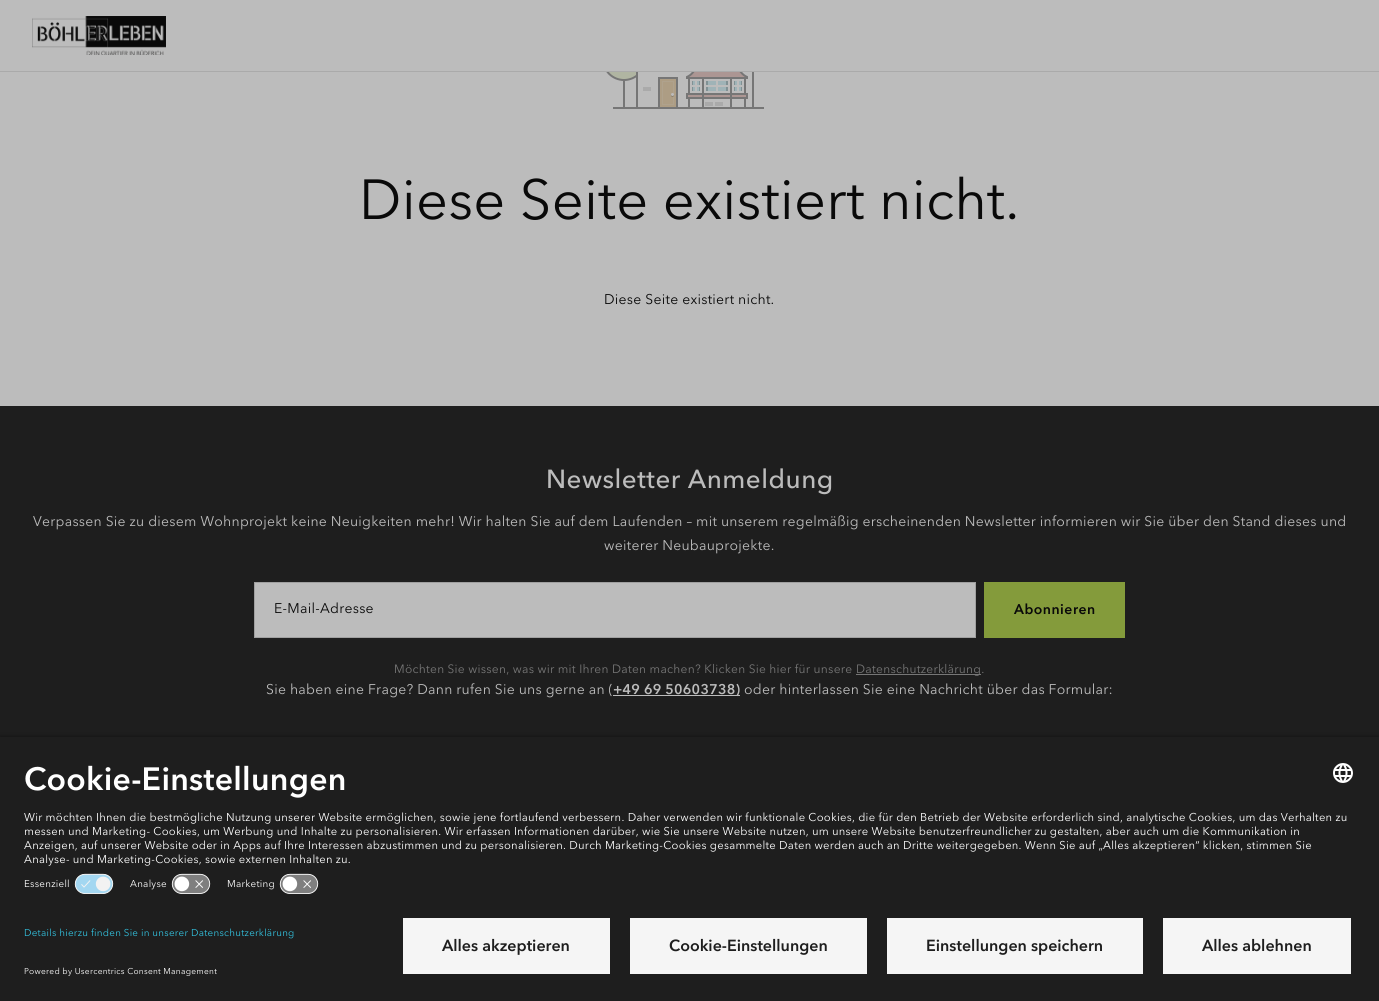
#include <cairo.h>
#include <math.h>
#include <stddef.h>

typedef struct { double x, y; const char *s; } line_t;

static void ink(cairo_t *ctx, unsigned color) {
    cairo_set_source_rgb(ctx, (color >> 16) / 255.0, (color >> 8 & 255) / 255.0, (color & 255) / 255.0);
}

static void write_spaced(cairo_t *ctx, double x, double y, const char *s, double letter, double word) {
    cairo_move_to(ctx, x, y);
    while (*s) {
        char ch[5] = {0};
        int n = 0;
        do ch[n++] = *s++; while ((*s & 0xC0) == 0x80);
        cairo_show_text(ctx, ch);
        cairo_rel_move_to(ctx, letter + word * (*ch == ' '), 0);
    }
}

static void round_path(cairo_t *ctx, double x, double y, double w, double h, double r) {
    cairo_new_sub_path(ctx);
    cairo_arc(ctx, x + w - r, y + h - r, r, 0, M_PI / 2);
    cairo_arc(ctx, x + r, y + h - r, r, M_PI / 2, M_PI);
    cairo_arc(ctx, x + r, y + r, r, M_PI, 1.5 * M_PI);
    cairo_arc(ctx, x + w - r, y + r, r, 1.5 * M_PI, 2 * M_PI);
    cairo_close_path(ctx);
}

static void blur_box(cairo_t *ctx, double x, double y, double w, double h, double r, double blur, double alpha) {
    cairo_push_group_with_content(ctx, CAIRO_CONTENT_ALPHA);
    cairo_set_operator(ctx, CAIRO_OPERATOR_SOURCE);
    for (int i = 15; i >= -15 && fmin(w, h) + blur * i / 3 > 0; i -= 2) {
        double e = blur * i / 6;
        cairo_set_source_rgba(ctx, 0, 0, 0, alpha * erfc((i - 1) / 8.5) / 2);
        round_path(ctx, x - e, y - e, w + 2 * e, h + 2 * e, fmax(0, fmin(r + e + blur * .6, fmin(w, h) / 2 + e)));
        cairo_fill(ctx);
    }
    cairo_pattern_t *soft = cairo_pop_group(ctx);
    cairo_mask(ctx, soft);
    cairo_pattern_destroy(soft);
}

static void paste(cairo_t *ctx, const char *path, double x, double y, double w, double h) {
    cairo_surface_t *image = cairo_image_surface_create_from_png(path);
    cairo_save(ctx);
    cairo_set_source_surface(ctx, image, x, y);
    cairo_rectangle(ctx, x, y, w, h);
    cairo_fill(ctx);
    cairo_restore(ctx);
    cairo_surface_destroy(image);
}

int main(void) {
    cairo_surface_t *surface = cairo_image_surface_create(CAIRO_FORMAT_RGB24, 1379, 1001);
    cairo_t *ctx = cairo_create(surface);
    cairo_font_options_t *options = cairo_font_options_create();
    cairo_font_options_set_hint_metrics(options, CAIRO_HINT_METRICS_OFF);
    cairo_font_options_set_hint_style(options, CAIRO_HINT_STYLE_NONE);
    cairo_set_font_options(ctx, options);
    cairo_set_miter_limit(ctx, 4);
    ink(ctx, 0xBCBCBC);
    cairo_paint(ctx);
    ink(ctx, 0xAAAAAA);
    cairo_rectangle(ctx, 0, 71, 1379, 1);
    cairo_fill(ctx);
    paste(ctx, "media/1.png", 32, 16, 134, 39);
    paste(ctx, "media/2.png", 606, 72, 158, 37);
    cairo_select_font_face(ctx, "Avenir Next", CAIRO_FONT_SLANT_NORMAL, CAIRO_FONT_WEIGHT_NORMAL);
    cairo_set_font_size(ctx, 56);
    ink(ctx, 0x090909);
    write_spaced(ctx, 359, 219, "Diese Seite existiert nicht.", 0.25, 0);
    cairo_set_font_size(ctx, 14);
    write_spaced(ctx, 604, 304, "Diese Seite existiert nicht.", 0.25, 0);
    ink(ctx, 0x1E1E1E);
    cairo_rectangle(ctx, 0, 406, 1379, 331);
    cairo_fill(ctx);
    cairo_select_font_face(ctx, "Avenir Next Medium", CAIRO_FONT_SLANT_NORMAL, CAIRO_FONT_WEIGHT_NORMAL);
    cairo_set_font_size(ctx, 26);
    ink(ctx, 0xBCBCBC);
    write_spaced(ctx, 546, 488, "Newsletter Anmeldung", 0.5, 0);
    cairo_select_font_face(ctx, "Avenir Next", CAIRO_FONT_SLANT_NORMAL, CAIRO_FONT_WEIGHT_NORMAL);
    cairo_set_font_size(ctx, 14);
    write_spaced(ctx, 33, 526, "Verpassen Sie zu diesem Wohnprojekt keine Neuigkeiten mehr! Wir halten Sie auf dem Laufenden – mit unserem regelmäßig erscheinenden Newsletter informieren wir Sie über den Stand dieses und", 0.25, 0);
    write_spaced(ctx, 604, 550, "weiterer Neubauprojekte.", 0.25, 0);
    cairo_rectangle(ctx, 254.5, 582.5, 721, 55);
    cairo_fill_preserve(ctx);
    ink(ctx, 0xA0A0A0);
    cairo_set_line_width(ctx, 1);
    cairo_stroke(ctx);
    ink(ctx, 0x090909);
    write_spaced(ctx, 274, 613, "E-Mail-Adresse", 0.25, 0);
    ink(ctx, 0x849B3B);
    cairo_rectangle(ctx, 984, 582, 141, 56);
    cairo_fill(ctx);
    cairo_select_font_face(ctx, "Avenir Next", CAIRO_FONT_SLANT_NORMAL, CAIRO_FONT_WEIGHT_BOLD);
    ink(ctx, 0x090909);
    write_spaced(ctx, 1014, 614, "Abonnieren", 0.5, 0);
    cairo_select_font_face(ctx, "Avenir Next", CAIRO_FONT_SLANT_NORMAL, CAIRO_FONT_WEIGHT_NORMAL);
    cairo_set_font_size(ctx, 12);
    ink(ctx, 0x767676);
    write_spaced(ctx, 394, 673, "Möchten Sie wissen, was wir mit Ihren Daten machen? Klicken Sie hier für unsere", 0.25, 0);
    cairo_rectangle(ctx, 856, 674, 125, 1);
    cairo_fill(ctx);
    write_spaced(ctx, 856, 673, "Datenschutzerklärung.", 0.25, 0);
    cairo_set_font_size(ctx, 14);
    ink(ctx, 0xBCBCBC);
    write_spaced(ctx, 266, 694, "Sie haben eine Frage? Dann rufen Sie uns gerne an (", 0.25, 0);
    cairo_rectangle(ctx, 613, 695, 127, 1);
    cairo_fill(ctx);
    cairo_select_font_face(ctx, "Avenir Next", CAIRO_FONT_SLANT_NORMAL, CAIRO_FONT_WEIGHT_BOLD);
    write_spaced(ctx, 613, 694, "+49 69 50603738)", 0.25, 0);
    cairo_select_font_face(ctx, "Avenir Next", CAIRO_FONT_SLANT_NORMAL, CAIRO_FONT_WEIGHT_NORMAL);
    write_spaced(ctx, 744, 694, "oder hinterlassen Sie eine Nachricht über das Formular:", 0.25, 0);
    ink(ctx, 0x000000);
    blur_box(ctx, 0, 739, 1379, 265, 0, 3.5, 0.8);
    ink(ctx, 0x1E1E1E);
    cairo_rectangle(ctx, 0, 737, 1379, 264);
    cairo_fill(ctx);
    cairo_select_font_face(ctx, "Avenir Next", CAIRO_FONT_SLANT_NORMAL, CAIRO_FONT_WEIGHT_BOLD);
    cairo_set_font_size(ctx, 32);
    ink(ctx, 0xFFFFFF);
    write_spaced(ctx, 24, 790, "Cookie-Einstellungen", 0.25, 0);
    paste(ctx, "media/3.png", 1333, 763, 20, 20);
    cairo_select_font_face(ctx, "Avenir Next", CAIRO_FONT_SLANT_NORMAL, CAIRO_FONT_WEIGHT_NORMAL);
    cairo_set_font_size(ctx, 11.25);
    {
        static const line_t items[] = {
            {24, 821, "Wir möchten Ihnen die bestmögliche Nutzung unserer Website ermöglichen, sowie jene fortlaufend verbessern. Daher verwenden wir funktionale Cookies, die für den Betrieb der Website erforderlich sind, analytische Cookies, um das Verhalten zu"},
            {24, 835, "messen und Marketing- Cookies, um Werbung und Inhalte zu personalisieren. Wir erfassen Informationen darüber, wie Sie unsere Website nutzen, um unsere Website benutzerfreundlicher zu gestalten, aber auch um die Kommunikation in"},
            {24, 849, "Anzeigen, auf unserer Website oder in Apps auf Ihre Interessen abzustimmen und zu personalisieren. Durch Marketing-Cookies gesammelte Daten werden auch an Dritte weitergegeben. Wenn Sie auf „Alles akzeptieren“ klicken, stimmen Sie"},
            {24, 863, "Analyse- und Marketing-Cookies, sowie externen Inhalten zu."},
        };
        for (size_t i = 0; i < sizeof items / sizeof *items; i++) {
            write_spaced(ctx, items[i].x, items[i].y, items[i].s, 0.25, 0);
        }
    }
    cairo_set_font_size(ctx, 9.85);
    write_spaced(ctx, 24, 887, "Essenziell", 0.25, 0);
    paste(ctx, "media/4.png", 74, 873, 40, 21);
    write_spaced(ctx, 130, 887, "Analyse", 0.25, 0);
    paste(ctx, "media/5.png", 171, 873, 40, 21);
    write_spaced(ctx, 227, 887, "Marketing", 0.25, 0);
    paste(ctx, "media/5.png", 279, 873, 40, 21);
    ink(ctx, 0x32C1DE);
    write_spaced(ctx, 24, 936, "Details hierzu finden Sie in unserer Datenschutzerklärung", 0.25, 0);
    cairo_set_font_size(ctx, 8.4);
    ink(ctx, 0xFFFFFF);
    write_spaced(ctx, 24, 974, "Powered by Usercentrics Consent Management", 0.25, 0);
    ink(ctx, 0xF5F5F5);
    cairo_rectangle(ctx, 403, 918, 207, 56);
    cairo_fill(ctx);
    cairo_select_font_face(ctx, "Avenir Next", CAIRO_FONT_SLANT_NORMAL, CAIRO_FONT_WEIGHT_BOLD);
    cairo_set_font_size(ctx, 16);
    ink(ctx, 0x1E1E1E);
    cairo_move_to(ctx, 442, 951);
    cairo_show_text(ctx, "Alles akzeptieren");
    ink(ctx, 0xF5F5F5);
    cairo_rectangle(ctx, 630, 918, 237, 56);
    cairo_fill(ctx);
    ink(ctx, 0x1E1E1E);
    cairo_move_to(ctx, 669, 951);
    cairo_show_text(ctx, "Cookie-Einstellungen");
    ink(ctx, 0xF5F5F5);
    cairo_rectangle(ctx, 887, 918, 256, 56);
    cairo_fill(ctx);
    ink(ctx, 0x1E1E1E);
    cairo_move_to(ctx, 926, 951);
    cairo_show_text(ctx, "Einstellungen speichern");
    ink(ctx, 0xF5F5F5);
    cairo_rectangle(ctx, 1163, 918, 188, 56);
    cairo_fill(ctx);
    ink(ctx, 0x1E1E1E);
    cairo_move_to(ctx, 1202, 951);
    cairo_show_text(ctx, "Alles ablehnen");
    cairo_surface_write_to_png(surface, "image.png");
    cairo_font_options_destroy(options);
    cairo_destroy(ctx);
    cairo_surface_destroy(surface);
    return 0;
}
